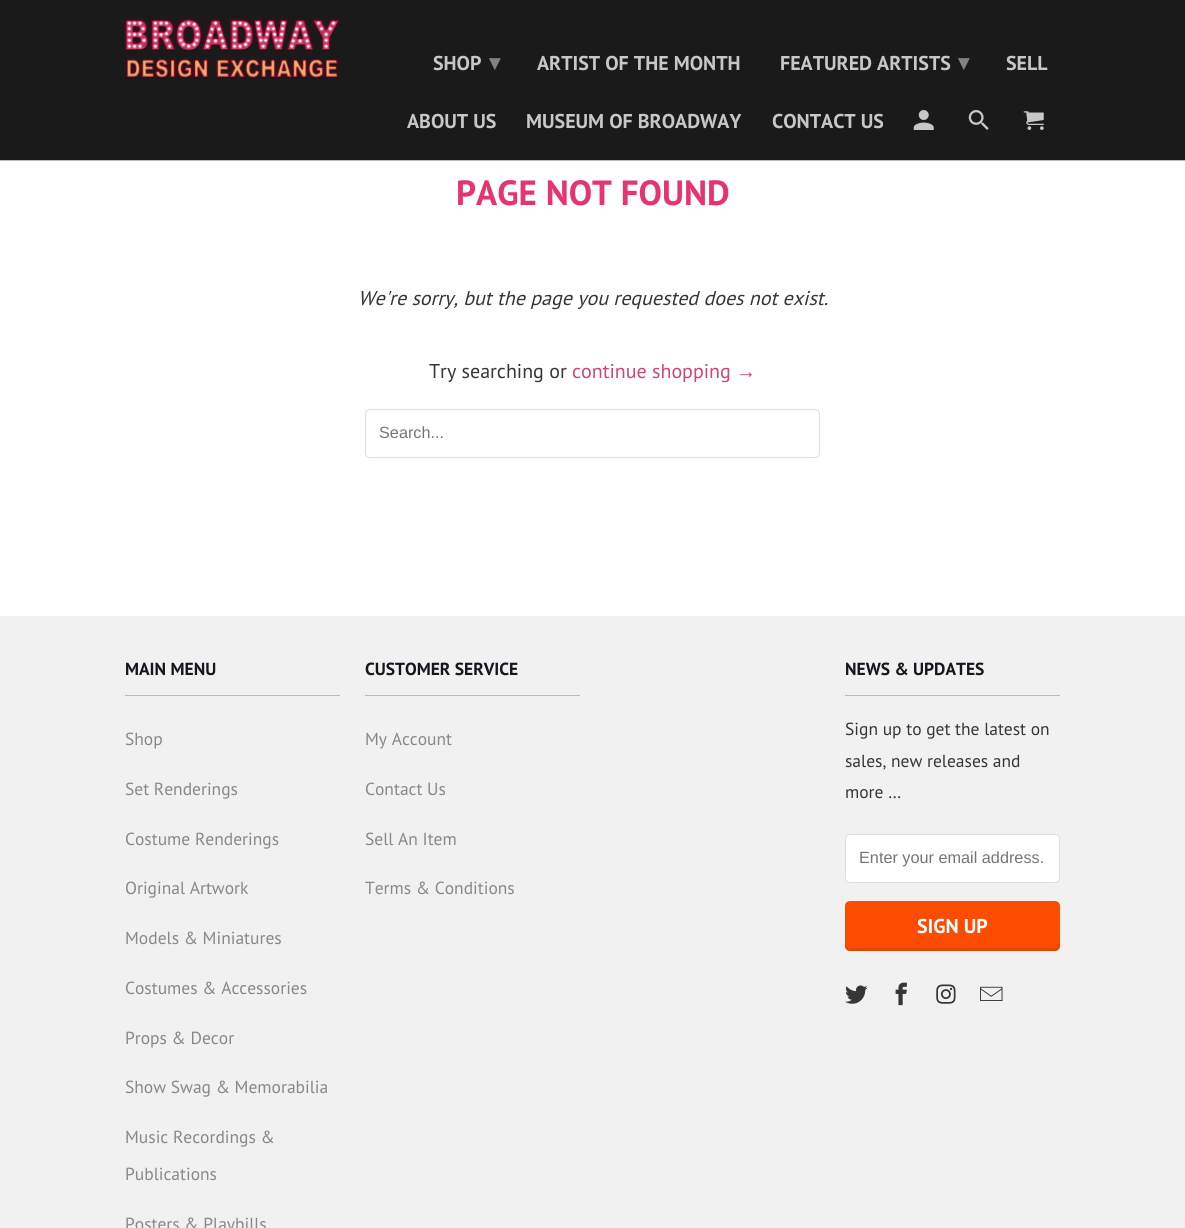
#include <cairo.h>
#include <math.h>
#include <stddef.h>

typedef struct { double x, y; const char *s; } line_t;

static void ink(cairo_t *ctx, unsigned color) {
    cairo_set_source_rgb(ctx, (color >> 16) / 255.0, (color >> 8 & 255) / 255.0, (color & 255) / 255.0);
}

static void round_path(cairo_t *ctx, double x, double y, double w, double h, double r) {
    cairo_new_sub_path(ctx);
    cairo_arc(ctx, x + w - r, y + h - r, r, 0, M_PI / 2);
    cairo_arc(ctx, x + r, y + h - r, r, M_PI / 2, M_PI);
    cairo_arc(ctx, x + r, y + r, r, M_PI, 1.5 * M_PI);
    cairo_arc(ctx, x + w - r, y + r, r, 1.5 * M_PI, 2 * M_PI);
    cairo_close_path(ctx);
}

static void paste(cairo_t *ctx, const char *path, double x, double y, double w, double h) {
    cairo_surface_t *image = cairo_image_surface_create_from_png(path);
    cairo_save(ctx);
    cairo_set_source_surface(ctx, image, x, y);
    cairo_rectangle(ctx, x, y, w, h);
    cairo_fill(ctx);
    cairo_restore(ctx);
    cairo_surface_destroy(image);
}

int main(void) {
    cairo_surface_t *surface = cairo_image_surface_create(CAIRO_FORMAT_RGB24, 1185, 1228);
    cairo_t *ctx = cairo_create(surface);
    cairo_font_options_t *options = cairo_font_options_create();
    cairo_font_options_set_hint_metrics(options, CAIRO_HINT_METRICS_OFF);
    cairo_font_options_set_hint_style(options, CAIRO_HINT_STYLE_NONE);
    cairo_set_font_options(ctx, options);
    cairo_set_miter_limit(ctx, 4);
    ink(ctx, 0xFFFFFF);
    cairo_paint(ctx);
    ink(ctx, 0x1A1A1A);
    cairo_rectangle(ctx, 0, 0, 1185, 160);
    cairo_fill(ctx);
    ink(ctx, 0xBBBBBB);
    cairo_rectangle(ctx, 0, 160, 1185, 1);
    cairo_fill(ctx);
    paste(ctx, "media/1.png", 125, 18, 215, 61);
    cairo_select_font_face(ctx, "PT Sans", CAIRO_FONT_SLANT_NORMAL, CAIRO_FONT_WEIGHT_BOLD);
    cairo_set_font_size(ctx, 20);
    ink(ctx, 0xC7C7C7);
    cairo_move_to(ctx, 433, 70);
    cairo_show_text(ctx, "SHOP");
    cairo_select_font_face(ctx, "DejaVu Sans", CAIRO_FONT_SLANT_NORMAL, CAIRO_FONT_WEIGHT_BOLD);
    cairo_set_font_size(ctx, 22);
    ink(ctx, 0x828282);
    cairo_move_to(ctx, 489, 70);
    cairo_show_text(ctx, "▾");
    cairo_select_font_face(ctx, "PT Sans", CAIRO_FONT_SLANT_NORMAL, CAIRO_FONT_WEIGHT_BOLD);
    cairo_set_font_size(ctx, 20);
    ink(ctx, 0xC7C7C7);
    cairo_move_to(ctx, 537, 70);
    cairo_show_text(ctx, "ARTIST OF THE MONTH");
    cairo_move_to(ctx, 780, 70);
    cairo_show_text(ctx, "FEATURED ARTISTS");
    cairo_select_font_face(ctx, "DejaVu Sans", CAIRO_FONT_SLANT_NORMAL, CAIRO_FONT_WEIGHT_BOLD);
    cairo_set_font_size(ctx, 22);
    ink(ctx, 0x828282);
    cairo_move_to(ctx, 958, 70);
    cairo_show_text(ctx, "▾");
    cairo_select_font_face(ctx, "PT Sans", CAIRO_FONT_SLANT_NORMAL, CAIRO_FONT_WEIGHT_BOLD);
    cairo_set_font_size(ctx, 20);
    ink(ctx, 0xC7C7C7);
    {
        static const line_t items[] = {
            {1006, 70, "SELL"},
            {407, 128, "ABOUT US"},
            {526, 128, "MUSEUM OF BROADWAY"},
            {772, 128, "CONTACT US"},
        };
        for (size_t i = 0; i < sizeof items / sizeof *items; i++) {
            cairo_move_to(ctx, items[i].x, items[i].y);
            cairo_show_text(ctx, items[i].s);
        }
    }
    paste(ctx, "media/2.png", 913, 110, 21, 20);
    paste(ctx, "media/3.png", 968, 110, 21, 20);
    paste(ctx, "media/4.png", 1023, 111, 21, 19);
    cairo_set_font_size(ctx, 35);
    ink(ctx, 0xE4366D);
    cairo_move_to(ctx, 456, 205);
    cairo_show_text(ctx, "PAGE NOT FOUND");
    cairo_select_font_face(ctx, "PT Sans", CAIRO_FONT_SLANT_ITALIC, CAIRO_FONT_WEIGHT_NORMAL);
    cairo_set_font_size(ctx, 20);
    ink(ctx, 0x363636);
    cairo_move_to(ctx, 358, 305);
    cairo_show_text(ctx, "We're sorry, but the page you requested does not exist.");
    cairo_select_font_face(ctx, "PT Sans", CAIRO_FONT_SLANT_NORMAL, CAIRO_FONT_WEIGHT_NORMAL);
    cairo_move_to(ctx, 429, 378);
    cairo_show_text(ctx, "Try searching or");
    ink(ctx, 0xCF4570);
    cairo_move_to(ctx, 572, 378);
    cairo_show_text(ctx, "continue shopping");
    cairo_select_font_face(ctx, "Liberation Serif", CAIRO_FONT_SLANT_NORMAL, CAIRO_FONT_WEIGHT_NORMAL);
    cairo_move_to(ctx, 736, 378);
    cairo_show_text(ctx, "→");
    round_path(ctx, 365.5, 409.5, 454, 48, 4.5);
    ink(ctx, 0xDCE0E0);
    cairo_set_line_width(ctx, 1);
    cairo_stroke(ctx);
    cairo_select_font_face(ctx, "Liberation Sans", CAIRO_FONT_SLANT_NORMAL, CAIRO_FONT_WEIGHT_NORMAL);
    cairo_set_font_size(ctx, 16.25);
    ink(ctx, 0x757575);
    cairo_move_to(ctx, 379, 438);
    cairo_show_text(ctx, "Search...");
    ink(ctx, 0xF1F1F1);
    cairo_rectangle(ctx, 0, 616, 1185, 612);
    cairo_fill(ctx);
    ink(ctx, 0xBBBBBB);
    cairo_rectangle(ctx, 125, 695, 215, 1);
    cairo_fill(ctx);
    cairo_select_font_face(ctx, "PT Sans", CAIRO_FONT_SLANT_NORMAL, CAIRO_FONT_WEIGHT_BOLD);
    cairo_set_font_size(ctx, 17.5);
    ink(ctx, 0x16161D);
    cairo_move_to(ctx, 125, 675);
    cairo_show_text(ctx, "MAIN MENU");
    cairo_select_font_face(ctx, "PT Sans", CAIRO_FONT_SLANT_NORMAL, CAIRO_FONT_WEIGHT_NORMAL);
    ink(ctx, 0x888888);
    {
        static const line_t items[] = {
            {125, 745, "Shop"},
            {125, 795, "Set Renderings"},
            {125, 845, "Costume Renderings"},
            {125, 894, "Original Artwork"},
            {125, 944, "Models & Miniatures"},
            {125, 994, "Costumes & Accessories"},
            {125, 1044, "Props & Decor"},
            {125, 1093, "Show Swag & Memorabilia"},
            {125, 1143, "Music Recordings &"},
            {125, 1180, "Publications"},
            {125, 1230, "Posters & Playbills"},
        };
        for (size_t i = 0; i < sizeof items / sizeof *items; i++) {
            cairo_move_to(ctx, items[i].x, items[i].y);
            cairo_show_text(ctx, items[i].s);
        }
    }
    ink(ctx, 0xBBBBBB);
    cairo_rectangle(ctx, 365, 695, 215, 1);
    cairo_fill(ctx);
    cairo_select_font_face(ctx, "PT Sans", CAIRO_FONT_SLANT_NORMAL, CAIRO_FONT_WEIGHT_BOLD);
    ink(ctx, 0x16161D);
    cairo_move_to(ctx, 365, 675);
    cairo_show_text(ctx, "CUSTOMER SERVICE");
    cairo_select_font_face(ctx, "PT Sans", CAIRO_FONT_SLANT_NORMAL, CAIRO_FONT_WEIGHT_NORMAL);
    ink(ctx, 0x888888);
    {
        static const line_t items[] = {
            {365, 745, "My Account"},
            {365, 795, "Contact Us"},
            {365, 845, "Sell An Item"},
            {365, 894, "Terms & Conditions"},
        };
        for (size_t i = 0; i < sizeof items / sizeof *items; i++) {
            cairo_move_to(ctx, items[i].x, items[i].y);
            cairo_show_text(ctx, items[i].s);
        }
    }
    ink(ctx, 0xBBBBBB);
    cairo_rectangle(ctx, 845, 695, 215, 1);
    cairo_fill(ctx);
    cairo_select_font_face(ctx, "PT Sans", CAIRO_FONT_SLANT_NORMAL, CAIRO_FONT_WEIGHT_BOLD);
    ink(ctx, 0x16161D);
    cairo_move_to(ctx, 845, 675);
    cairo_show_text(ctx, "NEWS & UPDATES");
    cairo_select_font_face(ctx, "PT Sans", CAIRO_FONT_SLANT_NORMAL, CAIRO_FONT_WEIGHT_NORMAL);
    ink(ctx, 0x363636);
    {
        static const line_t items[] = {
            {845, 735, "Sign up to get the latest on"},
            {845, 767, "sales, new releases and"},
            {845, 798, "more …"},
        };
        for (size_t i = 0; i < sizeof items / sizeof *items; i++) {
            cairo_move_to(ctx, items[i].x, items[i].y);
            cairo_show_text(ctx, items[i].s);
        }
    }
    ink(ctx, 0xFFFFFF);
    round_path(ctx, 845.5, 834.5, 214, 48, 4.5);
    cairo_fill_preserve(ctx);
    ink(ctx, 0xDCE0E0);
    cairo_stroke(ctx);
    cairo_select_font_face(ctx, "Liberation Sans", CAIRO_FONT_SLANT_NORMAL, CAIRO_FONT_WEIGHT_NORMAL);
    cairo_set_font_size(ctx, 16.25);
    ink(ctx, 0x757575);
    cairo_move_to(ctx, 859, 863);
    cairo_show_text(ctx, "Enter your email address.");
    ink(ctx, 0xFC4C02);
    round_path(ctx, 845, 901, 215, 50, 5);
    cairo_fill(ctx);
    cairo_set_source_rgba(ctx, 0, 0, 0, 0.1);
    cairo_new_path(ctx);
    cairo_move_to(ctx, 845, 942);
    cairo_line_to(ctx, 845, 946);
    cairo_curve_to(ctx, 845, 949, 847, 951, 850, 951);
    cairo_line_to(ctx, 1055, 951);
    cairo_curve_to(ctx, 1058, 951, 1060, 949, 1060, 946);
    cairo_line_to(ctx, 1060, 942);
    cairo_curve_to(ctx, 1060, 945, 1058, 948, 1055, 948);
    cairo_line_to(ctx, 850, 948);
    cairo_curve_to(ctx, 847, 948, 845, 945, 845, 942);
    cairo_close_path(ctx);
    cairo_fill(ctx);
    cairo_select_font_face(ctx, "PT Sans", CAIRO_FONT_SLANT_NORMAL, CAIRO_FONT_WEIGHT_BOLD);
    cairo_set_font_size(ctx, 20);
    ink(ctx, 0xFFFFFF);
    cairo_move_to(ctx, 917, 933);
    cairo_show_text(ctx, "SIGN UP");
    paste(ctx, "media/5.png", 845, 985, 23, 19);
    paste(ctx, "media/6.png", 895, 982, 12, 24);
    paste(ctx, "media/7.png", 936, 984, 20, 20);
    paste(ctx, "media/8.png", 980, 986, 23, 15);
    cairo_surface_write_to_png(surface, "image.png");
    cairo_font_options_destroy(options);
    cairo_destroy(ctx);
    cairo_surface_destroy(surface);
    return 0;
}
